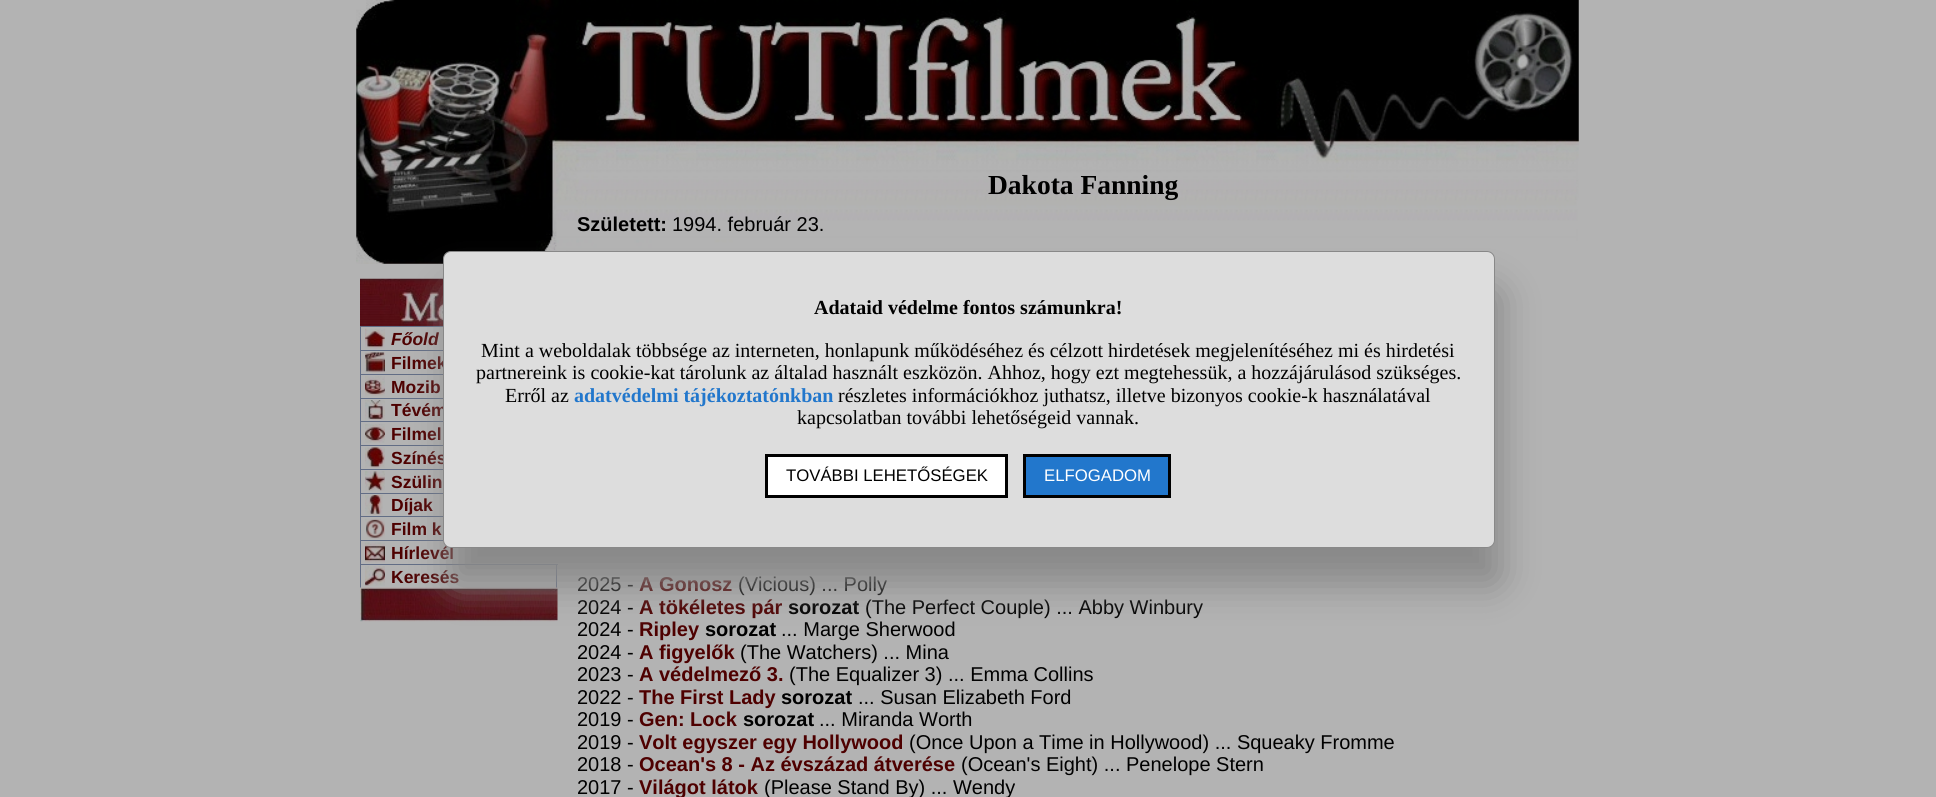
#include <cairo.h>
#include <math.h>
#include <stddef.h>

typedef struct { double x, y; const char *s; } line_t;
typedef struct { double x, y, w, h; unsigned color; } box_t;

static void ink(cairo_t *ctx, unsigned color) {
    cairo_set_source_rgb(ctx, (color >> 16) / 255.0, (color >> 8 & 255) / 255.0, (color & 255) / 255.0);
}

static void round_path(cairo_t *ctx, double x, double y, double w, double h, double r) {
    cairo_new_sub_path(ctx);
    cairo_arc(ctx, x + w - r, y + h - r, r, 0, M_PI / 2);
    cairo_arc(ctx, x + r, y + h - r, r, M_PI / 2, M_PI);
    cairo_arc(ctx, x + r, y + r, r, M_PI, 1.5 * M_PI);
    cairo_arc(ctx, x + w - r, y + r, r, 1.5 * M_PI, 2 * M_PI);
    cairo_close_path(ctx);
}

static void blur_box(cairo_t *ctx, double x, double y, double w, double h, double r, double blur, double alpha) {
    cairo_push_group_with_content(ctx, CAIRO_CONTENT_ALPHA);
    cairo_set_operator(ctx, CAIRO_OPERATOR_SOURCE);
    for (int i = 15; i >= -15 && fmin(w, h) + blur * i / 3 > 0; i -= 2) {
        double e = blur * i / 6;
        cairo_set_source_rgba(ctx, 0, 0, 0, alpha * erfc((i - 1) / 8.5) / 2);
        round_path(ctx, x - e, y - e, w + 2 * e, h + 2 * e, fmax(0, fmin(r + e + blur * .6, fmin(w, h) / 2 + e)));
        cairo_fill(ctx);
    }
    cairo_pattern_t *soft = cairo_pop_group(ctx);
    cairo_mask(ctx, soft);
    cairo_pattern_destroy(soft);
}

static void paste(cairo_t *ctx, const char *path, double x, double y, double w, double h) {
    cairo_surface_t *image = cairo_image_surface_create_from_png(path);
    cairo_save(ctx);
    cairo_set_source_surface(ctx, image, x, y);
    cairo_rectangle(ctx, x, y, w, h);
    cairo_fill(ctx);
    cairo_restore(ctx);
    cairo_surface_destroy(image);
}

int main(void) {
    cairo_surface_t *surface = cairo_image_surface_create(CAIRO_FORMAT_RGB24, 1936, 797);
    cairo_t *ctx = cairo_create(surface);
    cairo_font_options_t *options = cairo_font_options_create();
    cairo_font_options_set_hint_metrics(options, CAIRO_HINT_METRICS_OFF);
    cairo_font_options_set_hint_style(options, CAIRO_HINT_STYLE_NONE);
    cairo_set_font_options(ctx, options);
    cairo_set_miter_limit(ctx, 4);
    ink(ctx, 0xB3B3B3);
    cairo_paint(ctx);
    paste(ctx, "media/1.png", 356, 0, 1223, 264);
    paste(ctx, "media/2.png", 360, 278, 83, 48);
    ink(ctx, 0x626D85);
    cairo_rectangle(ctx, 360, 326, 83, 1);
    cairo_fill(ctx);
    cairo_rectangle(ctx, 360, 326, 1, 24);
    cairo_fill(ctx);
    paste(ctx, "media/3.png", 365, 328, 20, 21);
    cairo_select_font_face(ctx, "Liberation Sans", CAIRO_FONT_SLANT_ITALIC, CAIRO_FONT_WEIGHT_BOLD);
    cairo_set_font_size(ctx, 17.5);
    ink(ctx, 0x4E0000);
    cairo_move_to(ctx, 391, 345);
    cairo_show_text(ctx, "Főold");
    ink(ctx, 0x626D85);
    cairo_rectangle(ctx, 360, 350, 83, 1);
    cairo_fill(ctx);
    cairo_rectangle(ctx, 360, 350, 1, 24);
    cairo_fill(ctx);
    paste(ctx, "media/4.png", 365, 352, 20, 21);
    cairo_select_font_face(ctx, "Liberation Sans", CAIRO_FONT_SLANT_NORMAL, CAIRO_FONT_WEIGHT_BOLD);
    ink(ctx, 0x4E0000);
    cairo_move_to(ctx, 391, 369);
    cairo_show_text(ctx, "Filmek");
    ink(ctx, 0x626D85);
    cairo_rectangle(ctx, 360, 374, 83, 1);
    cairo_fill(ctx);
    cairo_rectangle(ctx, 360, 374, 1, 24);
    cairo_fill(ctx);
    paste(ctx, "media/5.png", 365, 376, 20, 20);
    ink(ctx, 0x4E0000);
    cairo_move_to(ctx, 391, 393);
    cairo_show_text(ctx, "Mozib");
    ink(ctx, 0x626D85);
    cairo_rectangle(ctx, 360, 398, 83, 1);
    cairo_fill(ctx);
    cairo_rectangle(ctx, 360, 398, 1, 23);
    cairo_fill(ctx);
    paste(ctx, "media/6.png", 365, 400, 20, 20);
    ink(ctx, 0x4E0000);
    cairo_move_to(ctx, 391, 416);
    cairo_show_text(ctx, "Tévém");
    ink(ctx, 0x626D85);
    cairo_rectangle(ctx, 360, 421, 83, 1);
    cairo_fill(ctx);
    cairo_rectangle(ctx, 360, 421, 1, 24);
    cairo_fill(ctx);
    paste(ctx, "media/7.png", 365, 424, 20, 19);
    ink(ctx, 0x4E0000);
    cairo_move_to(ctx, 391, 440);
    cairo_show_text(ctx, "Filmel");
    ink(ctx, 0x626D85);
    cairo_rectangle(ctx, 360, 445, 83, 1);
    cairo_fill(ctx);
    cairo_rectangle(ctx, 360, 445, 1, 24);
    cairo_fill(ctx);
    paste(ctx, "media/8.png", 365, 447, 20, 21);
    ink(ctx, 0x4E0000);
    cairo_move_to(ctx, 391, 464);
    cairo_show_text(ctx, "Színés");
    ink(ctx, 0x626D85);
    cairo_rectangle(ctx, 360, 469, 83, 1);
    cairo_fill(ctx);
    cairo_rectangle(ctx, 360, 469, 1, 24);
    cairo_fill(ctx);
    paste(ctx, "media/9.png", 365, 471, 20, 20);
    ink(ctx, 0x4E0000);
    cairo_move_to(ctx, 391, 488);
    cairo_show_text(ctx, "Szülin");
    ink(ctx, 0x626D85);
    cairo_rectangle(ctx, 360, 493, 83, 1);
    cairo_fill(ctx);
    cairo_rectangle(ctx, 360, 493, 1, 23);
    cairo_fill(ctx);
    paste(ctx, "media/10.png", 365, 495, 18, 20);
    ink(ctx, 0x4E0000);
    cairo_move_to(ctx, 391, 511);
    cairo_show_text(ctx, "Díjak");
    ink(ctx, 0x626D85);
    cairo_rectangle(ctx, 360, 516, 83, 1);
    cairo_fill(ctx);
    cairo_rectangle(ctx, 360, 516, 1, 24);
    cairo_fill(ctx);
    paste(ctx, "media/11.png", 365, 518, 20, 21);
    ink(ctx, 0x4E0000);
    cairo_move_to(ctx, 391, 535);
    cairo_show_text(ctx, "Film k");
    ink(ctx, 0x626D85);
    cairo_rectangle(ctx, 360, 540, 84, 1);
    cairo_fill(ctx);
    cairo_rectangle(ctx, 360, 540, 1, 24);
    cairo_fill(ctx);
    paste(ctx, "media/12.png", 365, 542, 20, 21);
    ink(ctx, 0x4E0000);
    cairo_move_to(ctx, 391, 559);
    cairo_show_text(ctx, "Hírlevél");
    {
        static const box_t items[] = {
            {360, 564, 198, 1, 0x626D85},
            {556, 564, 1, 24, 0x626D85},
            {360, 564, 1, 24, 0x626D85},
        };
        for (size_t i = 0; i < sizeof items / sizeof *items; i++) {
            ink(ctx, items[i].color);
            cairo_rectangle(ctx, items[i].x, items[i].y, items[i].w, items[i].h);
            cairo_fill(ctx);
        }
    }
    paste(ctx, "media/13.png", 365, 566, 20, 20);
    ink(ctx, 0x4E0000);
    cairo_move_to(ctx, 391, 583);
    cairo_show_text(ctx, "Keresés");
    paste(ctx, "media/14.png", 360, 587, 198, 35);
    cairo_select_font_face(ctx, "Liberation Serif", CAIRO_FONT_SLANT_NORMAL, CAIRO_FONT_WEIGHT_BOLD);
    cairo_set_font_size(ctx, 27.5);
    ink(ctx, 0x000000);
    cairo_move_to(ctx, 988, 194);
    cairo_show_text(ctx, "Dakota Fanning");
    cairo_select_font_face(ctx, "Liberation Sans", CAIRO_FONT_SLANT_NORMAL, CAIRO_FONT_WEIGHT_BOLD);
    cairo_set_font_size(ctx, 20);
    cairo_move_to(ctx, 577, 231);
    cairo_show_text(ctx, "Született:");
    cairo_select_font_face(ctx, "Liberation Sans", CAIRO_FONT_SLANT_NORMAL, CAIRO_FONT_WEIGHT_NORMAL);
    cairo_move_to(ctx, 672, 231);
    cairo_show_text(ctx, "1994. február 23.");
    cairo_move_to(ctx, 577, 591);
    cairo_show_text(ctx, "2025 -");
    cairo_select_font_face(ctx, "Liberation Sans", CAIRO_FONT_SLANT_NORMAL, CAIRO_FONT_WEIGHT_BOLD);
    ink(ctx, 0x4E0000);
    cairo_move_to(ctx, 639, 591);
    cairo_show_text(ctx, "A Gonosz");
    cairo_select_font_face(ctx, "Liberation Sans", CAIRO_FONT_SLANT_NORMAL, CAIRO_FONT_WEIGHT_NORMAL);
    ink(ctx, 0x000000);
    cairo_move_to(ctx, 738, 591);
    cairo_show_text(ctx, "(Vicious) ... Polly");
    cairo_move_to(ctx, 577, 614);
    cairo_show_text(ctx, "2024 -");
    cairo_select_font_face(ctx, "Liberation Sans", CAIRO_FONT_SLANT_NORMAL, CAIRO_FONT_WEIGHT_BOLD);
    ink(ctx, 0x4E0000);
    cairo_move_to(ctx, 639, 614);
    cairo_show_text(ctx, "A tökéletes pár");
    ink(ctx, 0x000000);
    cairo_move_to(ctx, 788, 614);
    cairo_show_text(ctx, "sorozat");
    cairo_select_font_face(ctx, "Liberation Sans", CAIRO_FONT_SLANT_NORMAL, CAIRO_FONT_WEIGHT_NORMAL);
    cairo_move_to(ctx, 865, 614);
    cairo_show_text(ctx, "(The Perfect Couple) ... Abby Winbury");
    cairo_move_to(ctx, 577, 636);
    cairo_show_text(ctx, "2024 -");
    cairo_select_font_face(ctx, "Liberation Sans", CAIRO_FONT_SLANT_NORMAL, CAIRO_FONT_WEIGHT_BOLD);
    ink(ctx, 0x4E0000);
    cairo_move_to(ctx, 639, 636);
    cairo_show_text(ctx, "Ripley");
    ink(ctx, 0x000000);
    cairo_move_to(ctx, 705, 636);
    cairo_show_text(ctx, "sorozat");
    cairo_select_font_face(ctx, "Liberation Sans", CAIRO_FONT_SLANT_NORMAL, CAIRO_FONT_WEIGHT_NORMAL);
    cairo_move_to(ctx, 781, 636);
    cairo_show_text(ctx, "... Marge Sherwood");
    cairo_move_to(ctx, 577, 659);
    cairo_show_text(ctx, "2024 -");
    cairo_select_font_face(ctx, "Liberation Sans", CAIRO_FONT_SLANT_NORMAL, CAIRO_FONT_WEIGHT_BOLD);
    ink(ctx, 0x4E0000);
    cairo_move_to(ctx, 639, 659);
    cairo_show_text(ctx, "A figyelők");
    cairo_select_font_face(ctx, "Liberation Sans", CAIRO_FONT_SLANT_NORMAL, CAIRO_FONT_WEIGHT_NORMAL);
    ink(ctx, 0x000000);
    cairo_move_to(ctx, 740, 659);
    cairo_show_text(ctx, "(The Watchers) ... Mina");
    cairo_move_to(ctx, 577, 681);
    cairo_show_text(ctx, "2023 -");
    cairo_select_font_face(ctx, "Liberation Sans", CAIRO_FONT_SLANT_NORMAL, CAIRO_FONT_WEIGHT_BOLD);
    ink(ctx, 0x4E0000);
    cairo_move_to(ctx, 639, 681);
    cairo_show_text(ctx, "A védelmező 3.");
    cairo_select_font_face(ctx, "Liberation Sans", CAIRO_FONT_SLANT_NORMAL, CAIRO_FONT_WEIGHT_NORMAL);
    ink(ctx, 0x000000);
    cairo_move_to(ctx, 789, 681);
    cairo_show_text(ctx, "(The Equalizer 3) ... Emma Collins");
    cairo_move_to(ctx, 577, 704);
    cairo_show_text(ctx, "2022 -");
    cairo_select_font_face(ctx, "Liberation Sans", CAIRO_FONT_SLANT_NORMAL, CAIRO_FONT_WEIGHT_BOLD);
    ink(ctx, 0x4E0000);
    cairo_move_to(ctx, 639, 704);
    cairo_show_text(ctx, "The First Lady");
    ink(ctx, 0x000000);
    cairo_move_to(ctx, 781, 704);
    cairo_show_text(ctx, "sorozat");
    cairo_select_font_face(ctx, "Liberation Sans", CAIRO_FONT_SLANT_NORMAL, CAIRO_FONT_WEIGHT_NORMAL);
    cairo_move_to(ctx, 858, 704);
    cairo_show_text(ctx, "... Susan Elizabeth Ford");
    cairo_move_to(ctx, 577, 726);
    cairo_show_text(ctx, "2019 -");
    cairo_select_font_face(ctx, "Liberation Sans", CAIRO_FONT_SLANT_NORMAL, CAIRO_FONT_WEIGHT_BOLD);
    ink(ctx, 0x4E0000);
    cairo_move_to(ctx, 639, 726);
    cairo_show_text(ctx, "Gen: Lock");
    ink(ctx, 0x000000);
    cairo_move_to(ctx, 743, 726);
    cairo_show_text(ctx, "sorozat");
    cairo_select_font_face(ctx, "Liberation Sans", CAIRO_FONT_SLANT_NORMAL, CAIRO_FONT_WEIGHT_NORMAL);
    cairo_move_to(ctx, 819, 726);
    cairo_show_text(ctx, "... Miranda Worth");
    cairo_move_to(ctx, 577, 749);
    cairo_show_text(ctx, "2019 -");
    cairo_select_font_face(ctx, "Liberation Sans", CAIRO_FONT_SLANT_NORMAL, CAIRO_FONT_WEIGHT_BOLD);
    ink(ctx, 0x4E0000);
    cairo_move_to(ctx, 639, 749);
    cairo_show_text(ctx, "Volt egyszer egy Hollywood");
    cairo_select_font_face(ctx, "Liberation Sans", CAIRO_FONT_SLANT_NORMAL, CAIRO_FONT_WEIGHT_NORMAL);
    ink(ctx, 0x000000);
    cairo_move_to(ctx, 909, 749);
    cairo_show_text(ctx, "(Once Upon a Time in Hollywood) ... Squeaky Fromme");
    cairo_move_to(ctx, 577, 771);
    cairo_show_text(ctx, "2018 -");
    cairo_select_font_face(ctx, "Liberation Sans", CAIRO_FONT_SLANT_NORMAL, CAIRO_FONT_WEIGHT_BOLD);
    ink(ctx, 0x4E0000);
    cairo_move_to(ctx, 639, 771);
    cairo_show_text(ctx, "Ocean's 8 - Az évszázad átverése");
    cairo_select_font_face(ctx, "Liberation Sans", CAIRO_FONT_SLANT_NORMAL, CAIRO_FONT_WEIGHT_NORMAL);
    ink(ctx, 0x000000);
    cairo_move_to(ctx, 961, 771);
    cairo_show_text(ctx, "(Ocean's Eight) ... Penelope Stern");
    cairo_move_to(ctx, 577, 794);
    cairo_show_text(ctx, "2017 -");
    cairo_select_font_face(ctx, "Liberation Sans", CAIRO_FONT_SLANT_NORMAL, CAIRO_FONT_WEIGHT_BOLD);
    ink(ctx, 0x4E0000);
    cairo_move_to(ctx, 639, 794);
    cairo_show_text(ctx, "Világot látok");
    cairo_select_font_face(ctx, "Liberation Sans", CAIRO_FONT_SLANT_NORMAL, CAIRO_FONT_WEIGHT_NORMAL);
    ink(ctx, 0x000000);
    cairo_move_to(ctx, 764, 794);
    cairo_show_text(ctx, "(Please Stand By) ... Wendy");
    ink(ctx, 0x888888);
    blur_box(ctx, 449, 289, 1052, 296, 8, 19, 1);
    ink(ctx, 0xDDDDDD);
    round_path(ctx, 443.5, 251.5, 1051, 296, 7.5);
    cairo_fill_preserve(ctx);
    ink(ctx, 0x888888);
    cairo_set_line_width(ctx, 1);
    cairo_stroke(ctx);
    cairo_select_font_face(ctx, "Liberation Serif", CAIRO_FONT_SLANT_NORMAL, CAIRO_FONT_WEIGHT_BOLD);
    ink(ctx, 0x000000);
    cairo_move_to(ctx, 814, 314);
    cairo_show_text(ctx, "Adataid védelme fontos számunkra!");
    cairo_select_font_face(ctx, "Liberation Serif", CAIRO_FONT_SLANT_NORMAL, CAIRO_FONT_WEIGHT_NORMAL);
    {
        static const line_t items[] = {
            {481, 357, "Mint a weboldalak többsége az interneten, honlapunk működéséhez és célzott hirdetések megjelenítéséhez mi és hirdetési"},
            {476, 379, "partnereink is cookie-kat tárolunk az általad használt eszközön. Ahhoz, hogy ezt megtehessük, a hozzájárulásod szükséges."},
            {505, 402, "Erről az"},
        };
        for (size_t i = 0; i < sizeof items / sizeof *items; i++) {
            cairo_move_to(ctx, items[i].x, items[i].y);
            cairo_show_text(ctx, items[i].s);
        }
    }
    cairo_select_font_face(ctx, "Liberation Serif", CAIRO_FONT_SLANT_NORMAL, CAIRO_FONT_WEIGHT_BOLD);
    ink(ctx, 0x2277CC);
    cairo_move_to(ctx, 574, 402);
    cairo_show_text(ctx, "adatvédelmi tájékoztatónkban");
    cairo_select_font_face(ctx, "Liberation Serif", CAIRO_FONT_SLANT_NORMAL, CAIRO_FONT_WEIGHT_NORMAL);
    ink(ctx, 0x000000);
    cairo_move_to(ctx, 838, 402);
    cairo_show_text(ctx, "részletes információkhoz juthatsz, illetve bizonyos cookie-k használatával");
    cairo_move_to(ctx, 797, 424);
    cairo_show_text(ctx, "kapcsolatban további lehetőségeid vannak.");
    ink(ctx, 0xFFFFFF);
    cairo_rectangle(ctx, 766.5, 455.5, 240, 41);
    cairo_fill_preserve(ctx);
    ink(ctx, 0x000000);
    cairo_set_line_width(ctx, 3);
    cairo_stroke(ctx);
    cairo_select_font_face(ctx, "Liberation Sans", CAIRO_FONT_SLANT_NORMAL, CAIRO_FONT_WEIGHT_NORMAL);
    cairo_set_font_size(ctx, 16.75);
    cairo_move_to(ctx, 786, 481);
    cairo_show_text(ctx, "TOVÁBBI LEHETŐSÉGEK");
    ink(ctx, 0x2277CC);
    cairo_rectangle(ctx, 1024.5, 455.5, 145, 41);
    cairo_fill_preserve(ctx);
    ink(ctx, 0x000000);
    cairo_stroke(ctx);
    ink(ctx, 0xFFFFFF);
    cairo_move_to(ctx, 1044, 481);
    cairo_show_text(ctx, "ELFOGADOM");
    cairo_surface_write_to_png(surface, "image.png");
    cairo_font_options_destroy(options);
    cairo_destroy(ctx);
    cairo_surface_destroy(surface);
    return 0;
}
